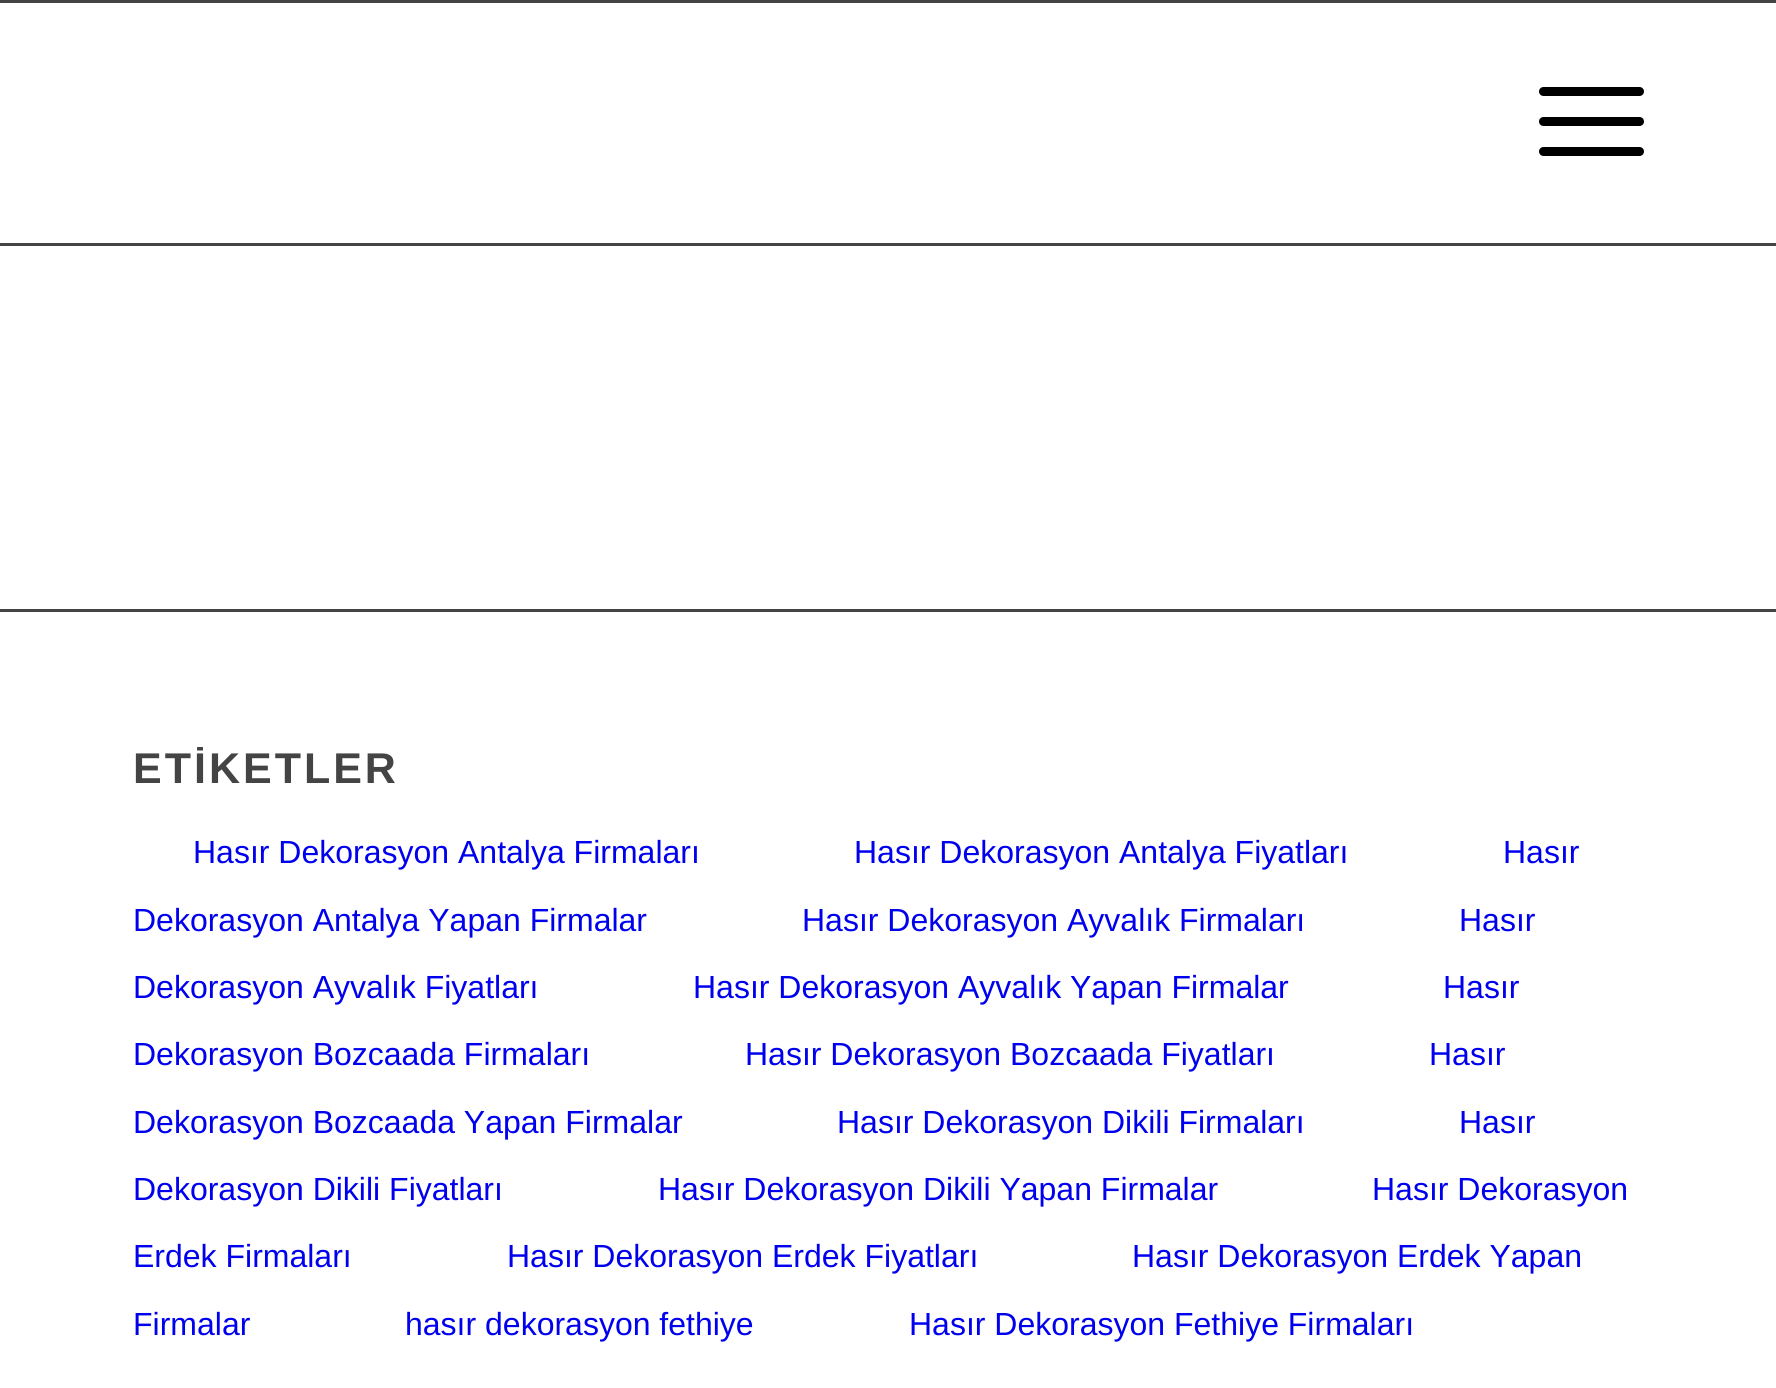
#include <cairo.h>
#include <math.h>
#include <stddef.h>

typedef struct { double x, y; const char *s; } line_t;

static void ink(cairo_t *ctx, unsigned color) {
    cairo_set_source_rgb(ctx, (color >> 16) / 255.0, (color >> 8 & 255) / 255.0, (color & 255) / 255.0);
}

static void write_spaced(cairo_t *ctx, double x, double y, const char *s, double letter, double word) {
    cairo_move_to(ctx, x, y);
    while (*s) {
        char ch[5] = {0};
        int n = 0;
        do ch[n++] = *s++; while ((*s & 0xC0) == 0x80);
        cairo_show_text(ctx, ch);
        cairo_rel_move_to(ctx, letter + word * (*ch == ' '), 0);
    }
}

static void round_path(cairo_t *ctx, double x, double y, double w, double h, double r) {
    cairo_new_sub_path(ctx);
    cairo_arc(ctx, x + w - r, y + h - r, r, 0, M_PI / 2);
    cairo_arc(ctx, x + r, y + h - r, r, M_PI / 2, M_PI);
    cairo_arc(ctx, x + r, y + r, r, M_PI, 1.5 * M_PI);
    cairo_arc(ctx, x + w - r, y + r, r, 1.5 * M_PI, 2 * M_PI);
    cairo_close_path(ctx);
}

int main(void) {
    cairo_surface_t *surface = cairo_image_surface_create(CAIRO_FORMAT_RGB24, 1776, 1388);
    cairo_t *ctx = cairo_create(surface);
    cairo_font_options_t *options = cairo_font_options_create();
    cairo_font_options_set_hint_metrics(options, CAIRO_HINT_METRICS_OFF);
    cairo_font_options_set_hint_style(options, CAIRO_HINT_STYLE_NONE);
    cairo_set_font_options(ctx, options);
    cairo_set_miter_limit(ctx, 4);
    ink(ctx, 0xFFFFFF);
    cairo_paint(ctx);
    ink(ctx, 0x444444);
    cairo_rectangle(ctx, 0, 0, 1776, 3);
    cairo_fill(ctx);
    cairo_rectangle(ctx, 0, 243, 1776, 3);
    cairo_fill(ctx);
    ink(ctx, 0x000000);
    round_path(ctx, 1539, 117, 105, 9, 4.5);
    cairo_fill(ctx);
    round_path(ctx, 1539, 87, 105, 9, 4.5);
    cairo_fill(ctx);
    round_path(ctx, 1539, 147, 105, 9, 4.5);
    cairo_fill(ctx);
    ink(ctx, 0x444444);
    cairo_rectangle(ctx, 0, 609, 1776, 3);
    cairo_fill(ctx);
    cairo_save(ctx);
    cairo_rectangle(ctx, 132, 747, 1512, 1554);
    cairo_clip(ctx);
    cairo_select_font_face(ctx, "Liberation Sans", CAIRO_FONT_SLANT_NORMAL, CAIRO_FONT_WEIGHT_BOLD);
    cairo_set_font_size(ctx, 43);
    write_spaced(ctx, 133, 783, "ETİKETLER", 3, 0);
    cairo_restore(ctx);
    cairo_select_font_face(ctx, "Liberation Sans", CAIRO_FONT_SLANT_NORMAL, CAIRO_FONT_WEIGHT_NORMAL);
    cairo_set_font_size(ctx, 32);
    ink(ctx, 0x0000EE);
    {
        static const line_t items[] = {
            {193, 863, "Hasır Dekorasyon Antalya Firmaları"},
            {854, 863, "Hasır Dekorasyon Antalya Fiyatları"},
            {1503, 863, "Hasır"},
            {133, 931, "Dekorasyon Antalya Yapan Firmalar"},
            {802, 931, "Hasır Dekorasyon Ayvalık Firmaları"},
            {1459, 931, "Hasır"},
            {133, 998, "Dekorasyon Ayvalık Fiyatları"},
            {693, 998, "Hasır Dekorasyon Ayvalık Yapan Firmalar"},
            {1443, 998, "Hasır"},
            {133, 1065, "Dekorasyon Bozcaada Firmaları"},
            {745, 1065, "Hasır Dekorasyon Bozcaada Fiyatları"},
            {1429, 1065, "Hasır"},
            {133, 1133, "Dekorasyon Bozcaada Yapan Firmalar"},
            {837, 1133, "Hasır Dekorasyon Dikili Firmaları"},
            {1459, 1133, "Hasır"},
            {133, 1200, "Dekorasyon Dikili Fiyatları"},
            {658, 1200, "Hasır Dekorasyon Dikili Yapan Firmalar"},
            {1372, 1200, "Hasır Dekorasyon"},
            {133, 1267, "Erdek Firmaları"},
            {507, 1267, "Hasır Dekorasyon Erdek Fiyatları"},
            {1132, 1267, "Hasır Dekorasyon Erdek Yapan"},
            {133, 1335, "Firmalar"},
            {405, 1335, "hasır dekorasyon fethiye"},
            {909, 1335, "Hasır Dekorasyon Fethiye Firmaları"},
        };
        for (size_t i = 0; i < sizeof items / sizeof *items; i++) {
            cairo_move_to(ctx, items[i].x, items[i].y);
            cairo_show_text(ctx, items[i].s);
        }
    }
    cairo_surface_write_to_png(surface, "image.png");
    cairo_font_options_destroy(options);
    cairo_destroy(ctx);
    cairo_surface_destroy(surface);
    return 0;
}
